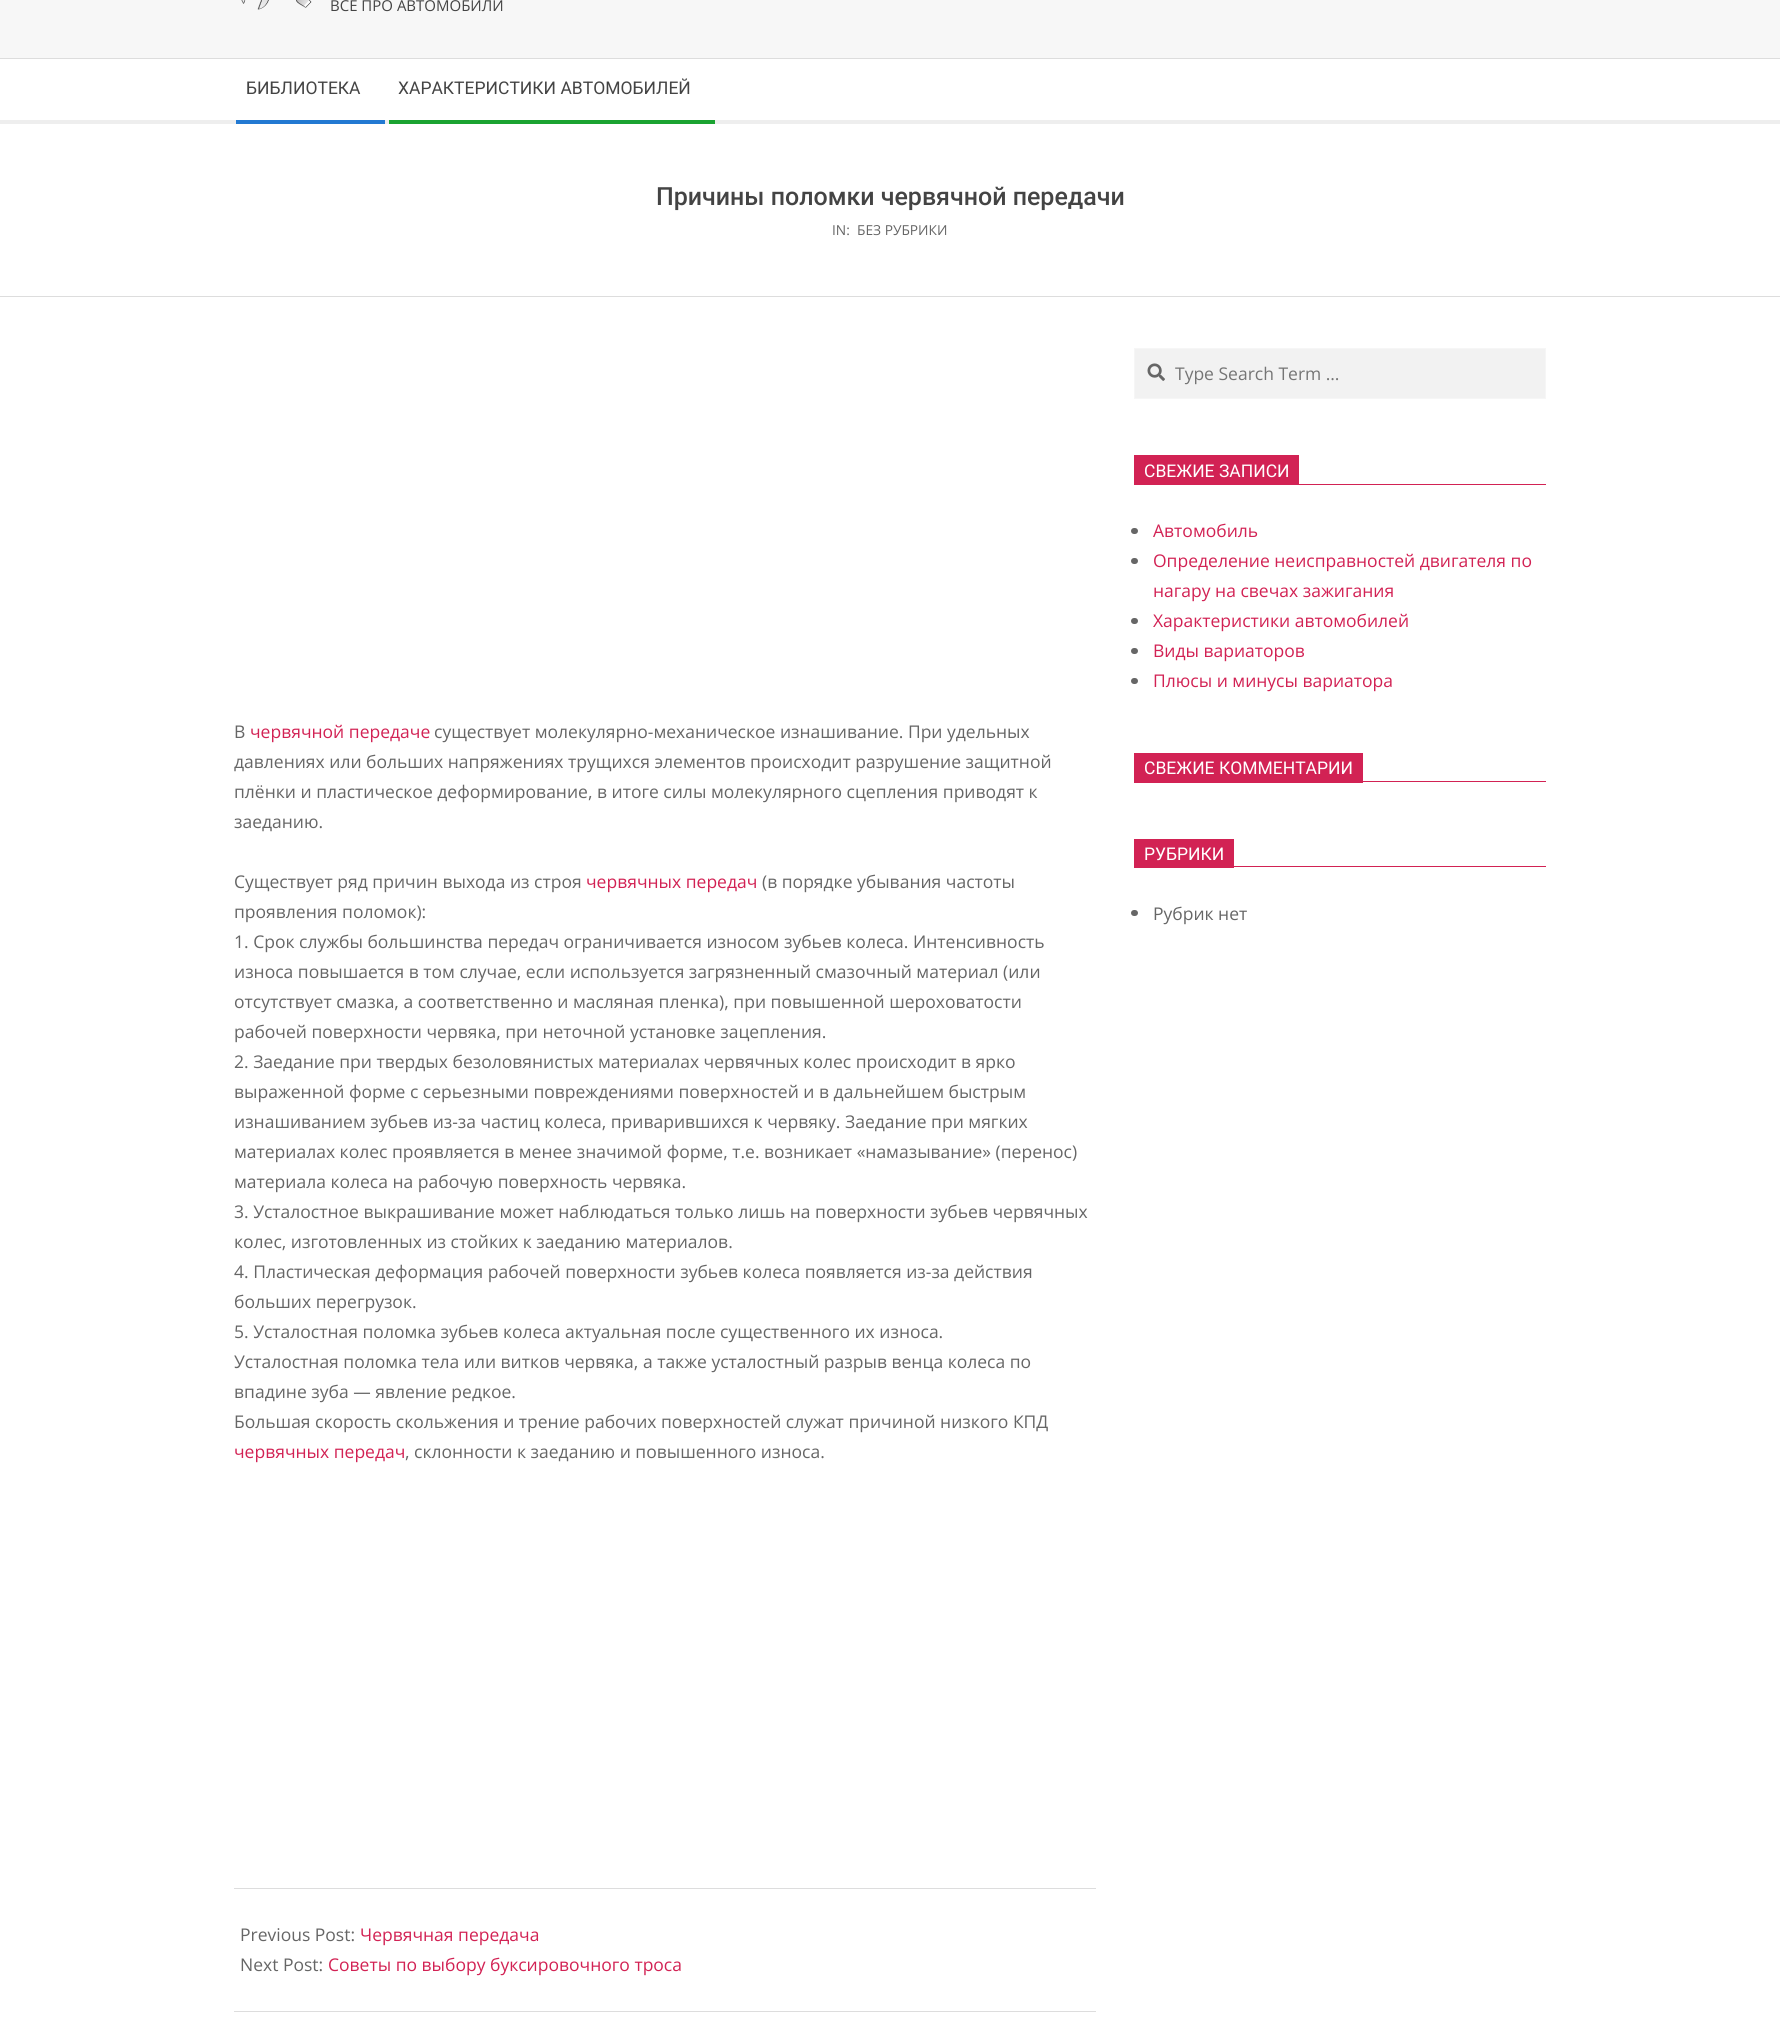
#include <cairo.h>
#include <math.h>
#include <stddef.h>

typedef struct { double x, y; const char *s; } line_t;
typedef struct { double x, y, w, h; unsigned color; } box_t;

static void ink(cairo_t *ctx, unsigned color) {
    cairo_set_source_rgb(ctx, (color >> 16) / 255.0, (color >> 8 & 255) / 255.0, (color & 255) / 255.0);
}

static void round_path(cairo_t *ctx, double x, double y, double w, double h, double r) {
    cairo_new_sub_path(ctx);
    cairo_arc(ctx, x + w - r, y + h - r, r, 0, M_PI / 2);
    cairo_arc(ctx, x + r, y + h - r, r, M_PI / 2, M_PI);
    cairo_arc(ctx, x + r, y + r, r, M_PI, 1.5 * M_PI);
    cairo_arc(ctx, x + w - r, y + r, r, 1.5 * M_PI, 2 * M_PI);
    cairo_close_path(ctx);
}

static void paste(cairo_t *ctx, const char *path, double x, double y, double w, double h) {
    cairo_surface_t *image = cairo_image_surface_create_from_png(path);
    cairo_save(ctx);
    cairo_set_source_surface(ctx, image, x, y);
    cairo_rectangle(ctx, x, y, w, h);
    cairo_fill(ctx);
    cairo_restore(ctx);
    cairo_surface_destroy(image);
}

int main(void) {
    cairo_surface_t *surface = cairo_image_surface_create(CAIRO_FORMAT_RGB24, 1780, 2030);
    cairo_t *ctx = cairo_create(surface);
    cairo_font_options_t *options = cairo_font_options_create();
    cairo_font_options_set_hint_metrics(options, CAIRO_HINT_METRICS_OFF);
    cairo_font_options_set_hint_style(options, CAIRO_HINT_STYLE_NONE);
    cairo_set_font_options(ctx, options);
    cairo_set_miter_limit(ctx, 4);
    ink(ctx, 0xF7F7F7);
    cairo_paint(ctx);
    ink(ctx, 0xDDDDDD);
    cairo_rectangle(ctx, 0, 58, 1780, 1);
    cairo_fill(ctx);
    paste(ctx, "media/1.png", 241, 0, 71, 10);
    cairo_select_font_face(ctx, "Open Sans", CAIRO_FONT_SLANT_NORMAL, CAIRO_FONT_WEIGHT_NORMAL);
    cairo_set_font_size(ctx, 15);
    ink(ctx, 0x444444);
    cairo_move_to(ctx, 330, 11);
    cairo_show_text(ctx, "ВСЕ ПРО АВТОМОБИЛИ");
    ink(ctx, 0xFFFFFF);
    cairo_rectangle(ctx, 0, 59, 1780, 61);
    cairo_fill(ctx);
    ink(ctx, 0xEEEEEE);
    cairo_rectangle(ctx, 0, 120, 1780, 4);
    cairo_fill(ctx);
    cairo_select_font_face(ctx, "Roboto", CAIRO_FONT_SLANT_NORMAL, CAIRO_FONT_WEIGHT_NORMAL);
    cairo_set_font_size(ctx, 17.5);
    ink(ctx, 0x444444);
    cairo_move_to(ctx, 246, 94);
    cairo_show_text(ctx, "БИБЛИОТЕКА");
    ink(ctx, 0x2279D2);
    cairo_rectangle(ctx, 236, 120, 149, 4);
    cairo_fill(ctx);
    ink(ctx, 0x444444);
    cairo_move_to(ctx, 398, 94);
    cairo_show_text(ctx, "ХАРАКТЕРИСТИКИ АВТОМОБИЛЕЙ");
    {
        static const box_t items[] = {
            {389, 120, 326, 4, 0x1AA331},
            {0, 124, 1780, 1906, 0xFFFFFF},
            {0, 296, 1780, 1, 0xDDDDDD},
        };
        for (size_t i = 0; i < sizeof items / sizeof *items; i++) {
            ink(ctx, items[i].color);
            cairo_rectangle(ctx, items[i].x, items[i].y, items[i].w, items[i].h);
            cairo_fill(ctx);
        }
    }
    cairo_select_font_face(ctx, "Roboto Medium", CAIRO_FONT_SLANT_NORMAL, CAIRO_FONT_WEIGHT_NORMAL);
    cairo_set_font_size(ctx, 25);
    ink(ctx, 0x444444);
    cairo_move_to(ctx, 656, 205);
    cairo_show_text(ctx, "Причины поломки червячной передачи");
    cairo_select_font_face(ctx, "Open Sans", CAIRO_FONT_SLANT_NORMAL, CAIRO_FONT_WEIGHT_NORMAL);
    cairo_set_font_size(ctx, 13.75);
    ink(ctx, 0x666666);
    cairo_move_to(ctx, 832, 235);
    cairo_show_text(ctx, "IN:");
    cairo_move_to(ctx, 857, 235);
    cairo_show_text(ctx, "БЕЗ РУБРИКИ");
    ink(ctx, 0xF2F2F2);
    cairo_rectangle(ctx, 1134.5, 348.5, 411, 50);
    cairo_fill_preserve(ctx);
    ink(ctx, 0xF6F6F6);
    cairo_set_line_width(ctx, 1);
    cairo_stroke(ctx);
    paste(ctx, "media/2.png", 1147, 363, 18, 18);
    cairo_set_font_size(ctx, 17.5);
    ink(ctx, 0x757575);
    cairo_move_to(ctx, 1175, 380);
    cairo_show_text(ctx, "Type Search Term …");
    ink(ctx, 0xD22254);
    cairo_rectangle(ctx, 1134, 455, 165, 29);
    cairo_fill(ctx);
    cairo_select_font_face(ctx, "Roboto", CAIRO_FONT_SLANT_NORMAL, CAIRO_FONT_WEIGHT_NORMAL);
    ink(ctx, 0xFFFFFF);
    cairo_move_to(ctx, 1144, 477);
    cairo_show_text(ctx, "СВЕЖИЕ ЗАПИСИ");
    ink(ctx, 0xD22254);
    cairo_rectangle(ctx, 1134, 484, 412, 1);
    cairo_fill(ctx);
    ink(ctx, 0x666666);
    round_path(ctx, 1131, 528, 7, 6, 3);
    cairo_fill(ctx);
    cairo_select_font_face(ctx, "Open Sans", CAIRO_FONT_SLANT_NORMAL, CAIRO_FONT_WEIGHT_NORMAL);
    ink(ctx, 0xD22254);
    cairo_move_to(ctx, 1153, 537);
    cairo_show_text(ctx, "Автомобиль");
    ink(ctx, 0x666666);
    round_path(ctx, 1131, 558, 7, 6, 3);
    cairo_fill(ctx);
    ink(ctx, 0xD22254);
    cairo_move_to(ctx, 1153, 567);
    cairo_show_text(ctx, "Определение неисправностей двигателя по");
    cairo_move_to(ctx, 1153, 597);
    cairo_show_text(ctx, "нагару на свечах зажигания");
    ink(ctx, 0x666666);
    round_path(ctx, 1131, 618, 7, 6, 3);
    cairo_fill(ctx);
    ink(ctx, 0xD22254);
    cairo_move_to(ctx, 1153, 627);
    cairo_show_text(ctx, "Характеристики автомобилей");
    ink(ctx, 0x666666);
    round_path(ctx, 1131, 648, 7, 6, 3);
    cairo_fill(ctx);
    ink(ctx, 0xD22254);
    cairo_move_to(ctx, 1153, 657);
    cairo_show_text(ctx, "Виды вариаторов");
    ink(ctx, 0x666666);
    round_path(ctx, 1131, 678, 7, 6, 3);
    cairo_fill(ctx);
    ink(ctx, 0xD22254);
    cairo_move_to(ctx, 1153, 687);
    cairo_show_text(ctx, "Плюсы и минусы вариатора");
    cairo_rectangle(ctx, 1134, 753, 229, 30);
    cairo_fill(ctx);
    cairo_select_font_face(ctx, "Roboto", CAIRO_FONT_SLANT_NORMAL, CAIRO_FONT_WEIGHT_NORMAL);
    ink(ctx, 0xFFFFFF);
    cairo_move_to(ctx, 1144, 774);
    cairo_show_text(ctx, "СВЕЖИЕ КОММЕНТАРИИ");
    ink(ctx, 0xD22254);
    cairo_rectangle(ctx, 1363, 781, 183, 1);
    cairo_fill(ctx);
    cairo_rectangle(ctx, 1134, 839, 100, 29);
    cairo_fill(ctx);
    ink(ctx, 0xFFFFFF);
    cairo_move_to(ctx, 1144, 860);
    cairo_show_text(ctx, "РУБРИКИ");
    ink(ctx, 0xD22254);
    cairo_rectangle(ctx, 1234, 866, 312, 1);
    cairo_fill(ctx);
    ink(ctx, 0x666666);
    round_path(ctx, 1131, 910, 7, 6, 3);
    cairo_fill(ctx);
    cairo_select_font_face(ctx, "Open Sans", CAIRO_FONT_SLANT_NORMAL, CAIRO_FONT_WEIGHT_NORMAL);
    cairo_move_to(ctx, 1153, 920);
    cairo_show_text(ctx, "Рубрик нет");
    ink(ctx, 0xDDDDDD);
    cairo_rectangle(ctx, 234, 1888, 862, 1);
    cairo_fill(ctx);
    ink(ctx, 0x666666);
    cairo_move_to(ctx, 234, 738);
    cairo_show_text(ctx, "В");
    ink(ctx, 0xD22254);
    cairo_move_to(ctx, 250, 738);
    cairo_show_text(ctx, "червячной передаче");
    ink(ctx, 0x666666);
    {
        static const line_t items[] = {
            {434, 738, "существует молекулярно-механическое изнашивание. При удельных"},
            {234, 768, "давлениях или больших напряжениях трущихся элементов происходит разрушение защитной"},
            {234, 798, "плёнки и пластическое деформирование, в итоге силы молекулярного сцепления приводят к"},
            {234, 828, "заеданию."},
            {234, 888, "Существует ряд причин выхода из строя"},
        };
        for (size_t i = 0; i < sizeof items / sizeof *items; i++) {
            cairo_move_to(ctx, items[i].x, items[i].y);
            cairo_show_text(ctx, items[i].s);
        }
    }
    ink(ctx, 0xD22254);
    cairo_move_to(ctx, 586, 888);
    cairo_show_text(ctx, "червячных передач");
    ink(ctx, 0x666666);
    {
        static const line_t items[] = {
            {762, 888, "(в порядке убывания частоты"},
            {234, 918, "проявления поломок):"},
            {234, 948, "1. Срок службы большинства передач ограничивается износом зубьев колеса. Интенсивность"},
            {234, 978, "износа повышается в том случае, если используется загрязненный смазочный материал (или"},
            {234, 1008, "отсутствует смазка, а соответственно и масляная пленка), при повышенной шероховатости"},
            {234, 1038, "рабочей поверхности червяка, при неточной установке зацепления."},
            {234, 1068, "2. Заедание при твердых безоловянистых материалах червячных колес происходит в ярко"},
            {234, 1098, "выраженной форме с серьезными повреждениями поверхностей и в дальнейшем быстрым"},
            {234, 1128, "изнашиванием зубьев из-за частиц колеса, приварившихся к червяку. Заедание при мягких"},
            {234, 1158, "материалах колес проявляется в менее значимой форме, т.е. возникает «намазывание» (перенос)"},
            {234, 1188, "материала колеса на рабочую поверхность червяка."},
            {234, 1218, "3. Усталостное выкрашивание может наблюдаться только лишь на поверхности зубьев червячных"},
            {234, 1248, "колес, изготовленных из стойких к заеданию материалов."},
            {234, 1278, "4. Пластическая деформация рабочей поверхности зубьев колеса появляется из-за действия"},
            {234, 1308, "больших перегрузок."},
            {234, 1338, "5. Усталостная поломка зубьев колеса актуальная после существенного их износа."},
            {234, 1368, "Усталостная поломка тела или витков червяка, а также усталостный разрыв венца колеса по"},
            {234, 1398, "впадине зуба — явление редкое."},
            {234, 1428, "Большая скорость скольжения и трение рабочих поверхностей служат причиной низкого КПД"},
        };
        for (size_t i = 0; i < sizeof items / sizeof *items; i++) {
            cairo_move_to(ctx, items[i].x, items[i].y);
            cairo_show_text(ctx, items[i].s);
        }
    }
    ink(ctx, 0xD22254);
    cairo_move_to(ctx, 234, 1458);
    cairo_show_text(ctx, "червячных передач");
    ink(ctx, 0x666666);
    cairo_move_to(ctx, 405, 1458);
    cairo_show_text(ctx, ", склонности к заеданию и повышенного износа.");
    ink(ctx, 0xDDDDDD);
    cairo_rectangle(ctx, 234, 2011, 862, 1);
    cairo_fill(ctx);
    ink(ctx, 0x666666);
    cairo_move_to(ctx, 240, 1941);
    cairo_show_text(ctx, "Previous Post:");
    ink(ctx, 0xD22254);
    cairo_move_to(ctx, 360, 1941);
    cairo_show_text(ctx, "Червячная передача");
    ink(ctx, 0x666666);
    cairo_move_to(ctx, 240, 1971);
    cairo_show_text(ctx, "Next Post:");
    ink(ctx, 0xD22254);
    cairo_move_to(ctx, 328, 1971);
    cairo_show_text(ctx, "Советы по выбору буксировочного троса");
    cairo_surface_write_to_png(surface, "image.png");
    cairo_font_options_destroy(options);
    cairo_destroy(ctx);
    cairo_surface_destroy(surface);
    return 0;
}
